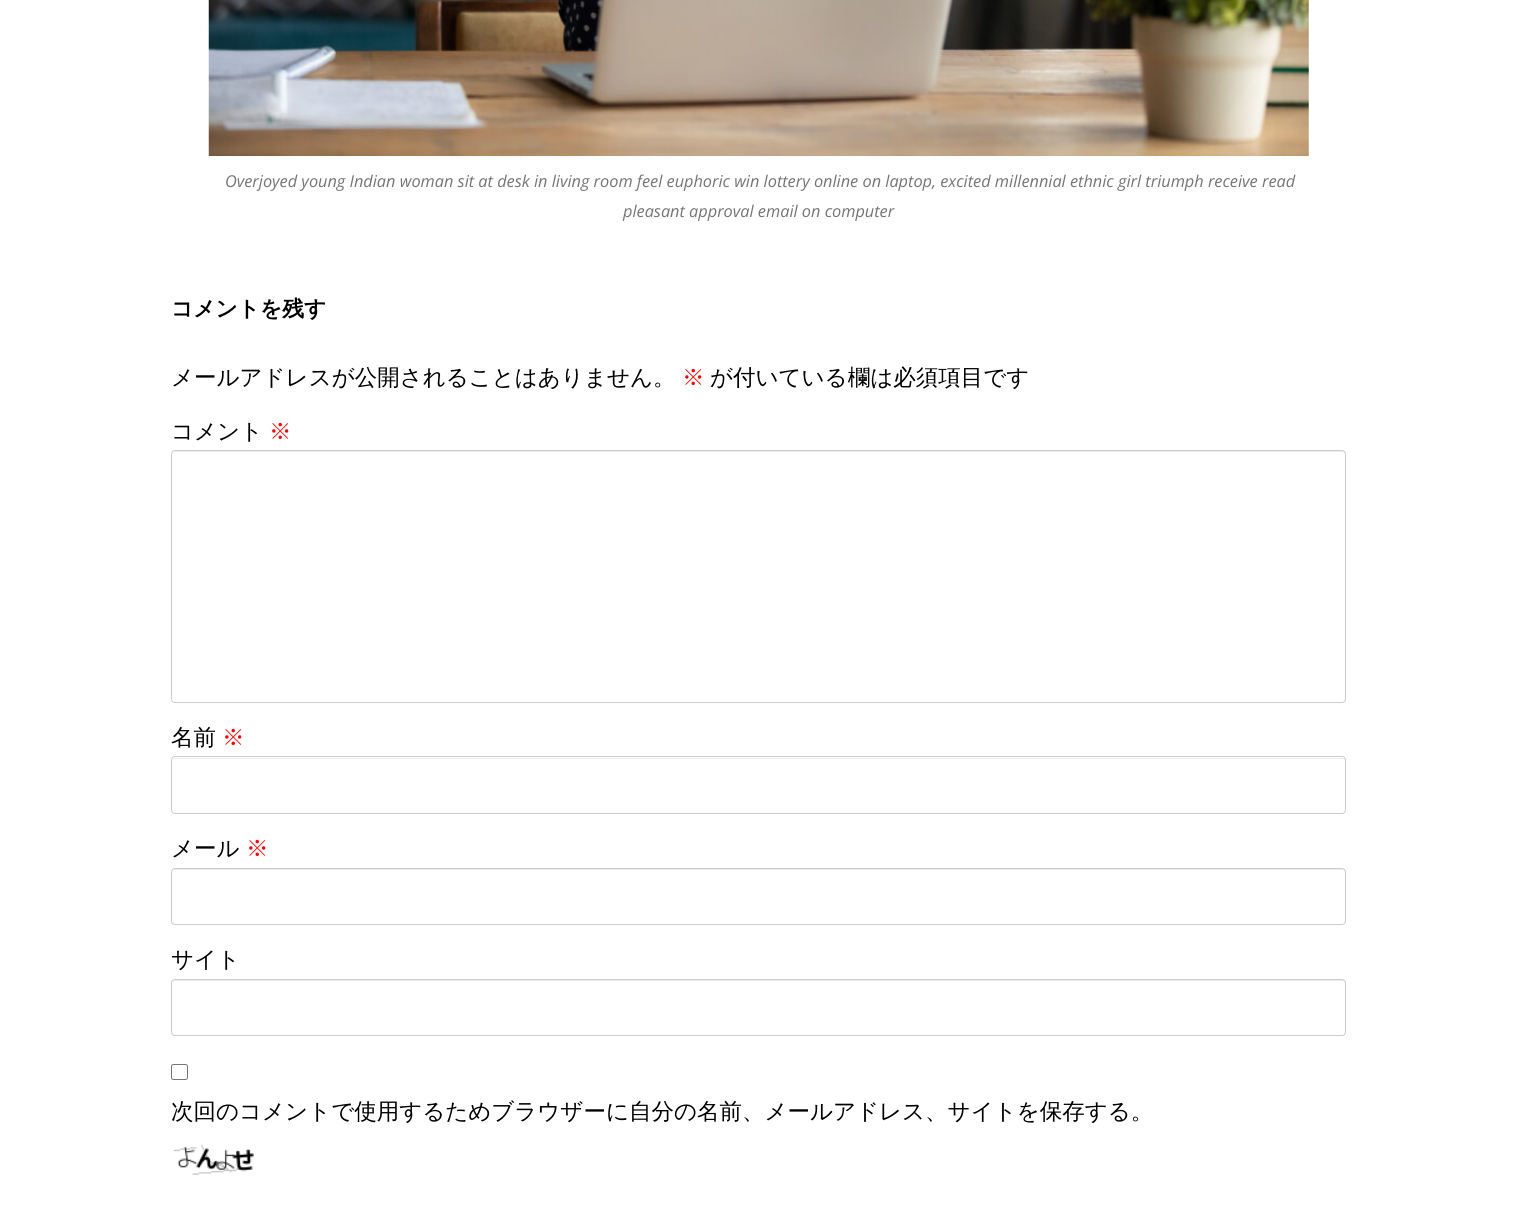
#include <cairo.h>
#include <math.h>
#include <stddef.h>


static void ink(cairo_t *ctx, unsigned color) {
    cairo_set_source_rgb(ctx, (color >> 16) / 255.0, (color >> 8 & 255) / 255.0, (color & 255) / 255.0);
}

static void round_path(cairo_t *ctx, double x, double y, double w, double h, double r) {
    cairo_new_sub_path(ctx);
    cairo_arc(ctx, x + w - r, y + h - r, r, 0, M_PI / 2);
    cairo_arc(ctx, x + r, y + h - r, r, M_PI / 2, M_PI);
    cairo_arc(ctx, x + r, y + r, r, M_PI, 1.5 * M_PI);
    cairo_arc(ctx, x + w - r, y + r, r, 1.5 * M_PI, 2 * M_PI);
    cairo_close_path(ctx);
}

static void paste(cairo_t *ctx, const char *path, double x, double y, double w, double h) {
    cairo_surface_t *image = cairo_image_surface_create_from_png(path);
    cairo_save(ctx);
    cairo_set_source_surface(ctx, image, x, y);
    cairo_rectangle(ctx, x, y, w, h);
    cairo_fill(ctx);
    cairo_restore(ctx);
    cairo_surface_destroy(image);
}

int main(void) {
    cairo_surface_t *surface = cairo_image_surface_create(CAIRO_FORMAT_RGB24, 1517, 1219);
    cairo_t *ctx = cairo_create(surface);
    cairo_font_options_t *options = cairo_font_options_create();
    cairo_font_options_set_hint_metrics(options, CAIRO_HINT_METRICS_OFF);
    cairo_font_options_set_hint_style(options, CAIRO_HINT_STYLE_NONE);
    cairo_set_font_options(ctx, options);
    cairo_set_miter_limit(ctx, 4);
    ink(ctx, 0xFFFFFF);
    cairo_paint(ctx);
    paste(ctx, "media/1.png", 208, 0, 1101, 156);
    cairo_select_font_face(ctx, "Open Sans", CAIRO_FONT_SLANT_ITALIC, CAIRO_FONT_WEIGHT_NORMAL);
    cairo_set_font_size(ctx, 16.3);
    ink(ctx, 0x757575);
    cairo_move_to(ctx, 225, 187);
    cairo_show_text(ctx, "Overjoyed young Indian woman sit at desk in living room feel euphoric win lottery online on laptop, excited millennial ethnic girl triumph receive read");
    cairo_move_to(ctx, 623, 217);
    cairo_show_text(ctx, "pleasant approval email on computer");
    cairo_select_font_face(ctx, "WenQuanYi Zen Hei", CAIRO_FONT_SLANT_NORMAL, CAIRO_FONT_WEIGHT_BOLD);
    cairo_set_font_size(ctx, 21.75);
    ink(ctx, 0x000000);
    cairo_move_to(ctx, 171, 316);
    cairo_show_text(ctx, "コメントを残す");
    cairo_select_font_face(ctx, "WenQuanYi Zen Hei Medium", CAIRO_FONT_SLANT_NORMAL, CAIRO_FONT_WEIGHT_NORMAL);
    cairo_set_font_size(ctx, 22.5);
    cairo_move_to(ctx, 171, 385);
    cairo_show_text(ctx, "メールアドレスが公開されることはありません。");
    ink(ctx, 0xFF0000);
    cairo_move_to(ctx, 682, 385);
    cairo_show_text(ctx, "※");
    ink(ctx, 0x000000);
    cairo_move_to(ctx, 710, 385);
    cairo_show_text(ctx, "が付いている欄は必須項目です");
    cairo_move_to(ctx, 171, 439);
    cairo_show_text(ctx, "コメント");
    ink(ctx, 0xFF0000);
    cairo_move_to(ctx, 269, 439);
    cairo_show_text(ctx, "※");
    ink(ctx, 0xECECEC);
    cairo_new_path(ctx);
    cairo_move_to(ctx, 175, 452);
    cairo_line_to(ctx, 1342, 452);
    cairo_curve_to(ctx, 1344, 452, 1345, 454, 1345, 455);
    cairo_line_to(ctx, 1345, 454);
    cairo_curve_to(ctx, 1345, 452, 1344, 451, 1342, 451);
    cairo_line_to(ctx, 176, 451);
    cairo_curve_to(ctx, 174, 451, 173, 452, 173, 453);
    cairo_close_path(ctx);
    cairo_fill(ctx);
    round_path(ctx, 171.5, 450.5, 1174, 252, 3.5);
    ink(ctx, 0xCCCCCC);
    cairo_set_line_width(ctx, 1);
    cairo_stroke(ctx);
    ink(ctx, 0x000000);
    cairo_move_to(ctx, 171, 745);
    cairo_show_text(ctx, "名前");
    ink(ctx, 0xFF0000);
    cairo_move_to(ctx, 222, 745);
    cairo_show_text(ctx, "※");
    ink(ctx, 0xECECEC);
    cairo_new_path(ctx);
    cairo_move_to(ctx, 175, 759);
    cairo_line_to(ctx, 1342, 759);
    cairo_curve_to(ctx, 1344, 759, 1345, 760, 1345, 761);
    cairo_curve_to(ctx, 1345, 759, 1344, 758, 1342, 758);
    cairo_line_to(ctx, 175, 758);
    cairo_line_to(ctx, 173, 760);
    cairo_close_path(ctx);
    cairo_fill(ctx);
    round_path(ctx, 171.5, 756.5, 1174, 57, 3.5);
    ink(ctx, 0xCCCCCC);
    cairo_stroke(ctx);
    ink(ctx, 0x000000);
    cairo_move_to(ctx, 171, 856);
    cairo_show_text(ctx, "メール");
    ink(ctx, 0xFF0000);
    cairo_move_to(ctx, 246, 856);
    cairo_show_text(ctx, "※");
    ink(ctx, 0xECECEC);
    cairo_new_path(ctx);
    cairo_move_to(ctx, 175, 870);
    cairo_line_to(ctx, 1342, 870);
    cairo_curve_to(ctx, 1344, 870, 1345, 871, 1345, 872);
    cairo_curve_to(ctx, 1345, 870, 1344, 869, 1342, 869);
    cairo_line_to(ctx, 175, 869);
    cairo_line_to(ctx, 173, 871);
    cairo_close_path(ctx);
    cairo_fill(ctx);
    round_path(ctx, 171.5, 868.5, 1174, 56, 3.5);
    ink(ctx, 0xCCCCCC);
    cairo_stroke(ctx);
    ink(ctx, 0x000000);
    cairo_move_to(ctx, 171, 967);
    cairo_show_text(ctx, "サイト");
    ink(ctx, 0xECECEC);
    cairo_new_path(ctx);
    cairo_move_to(ctx, 175, 981);
    cairo_line_to(ctx, 1342, 981);
    cairo_curve_to(ctx, 1344, 981, 1345, 982, 1345, 984);
    cairo_line_to(ctx, 1345, 982);
    cairo_curve_to(ctx, 1345, 981, 1344, 980, 1342, 980);
    cairo_line_to(ctx, 176, 980);
    cairo_curve_to(ctx, 174, 980, 173, 981, 173, 982);
    cairo_close_path(ctx);
    cairo_fill(ctx);
    round_path(ctx, 171.5, 979.5, 1174, 56, 3.5);
    ink(ctx, 0xCCCCCC);
    cairo_stroke(ctx);
    round_path(ctx, 171.5, 1064.5, 16, 15, 2);
    ink(ctx, 0x767676);
    cairo_stroke(ctx);
    ink(ctx, 0x000000);
    cairo_move_to(ctx, 171, 1119);
    cairo_show_text(ctx, "次回のコメントで使用するためブラウザーに自分の名前、メールアドレス、サイトを保存する。");
    paste(ctx, "media/2.png", 173, 1144, 81, 31);
    cairo_surface_write_to_png(surface, "image.png");
    cairo_font_options_destroy(options);
    cairo_destroy(ctx);
    cairo_surface_destroy(surface);
    return 0;
}
